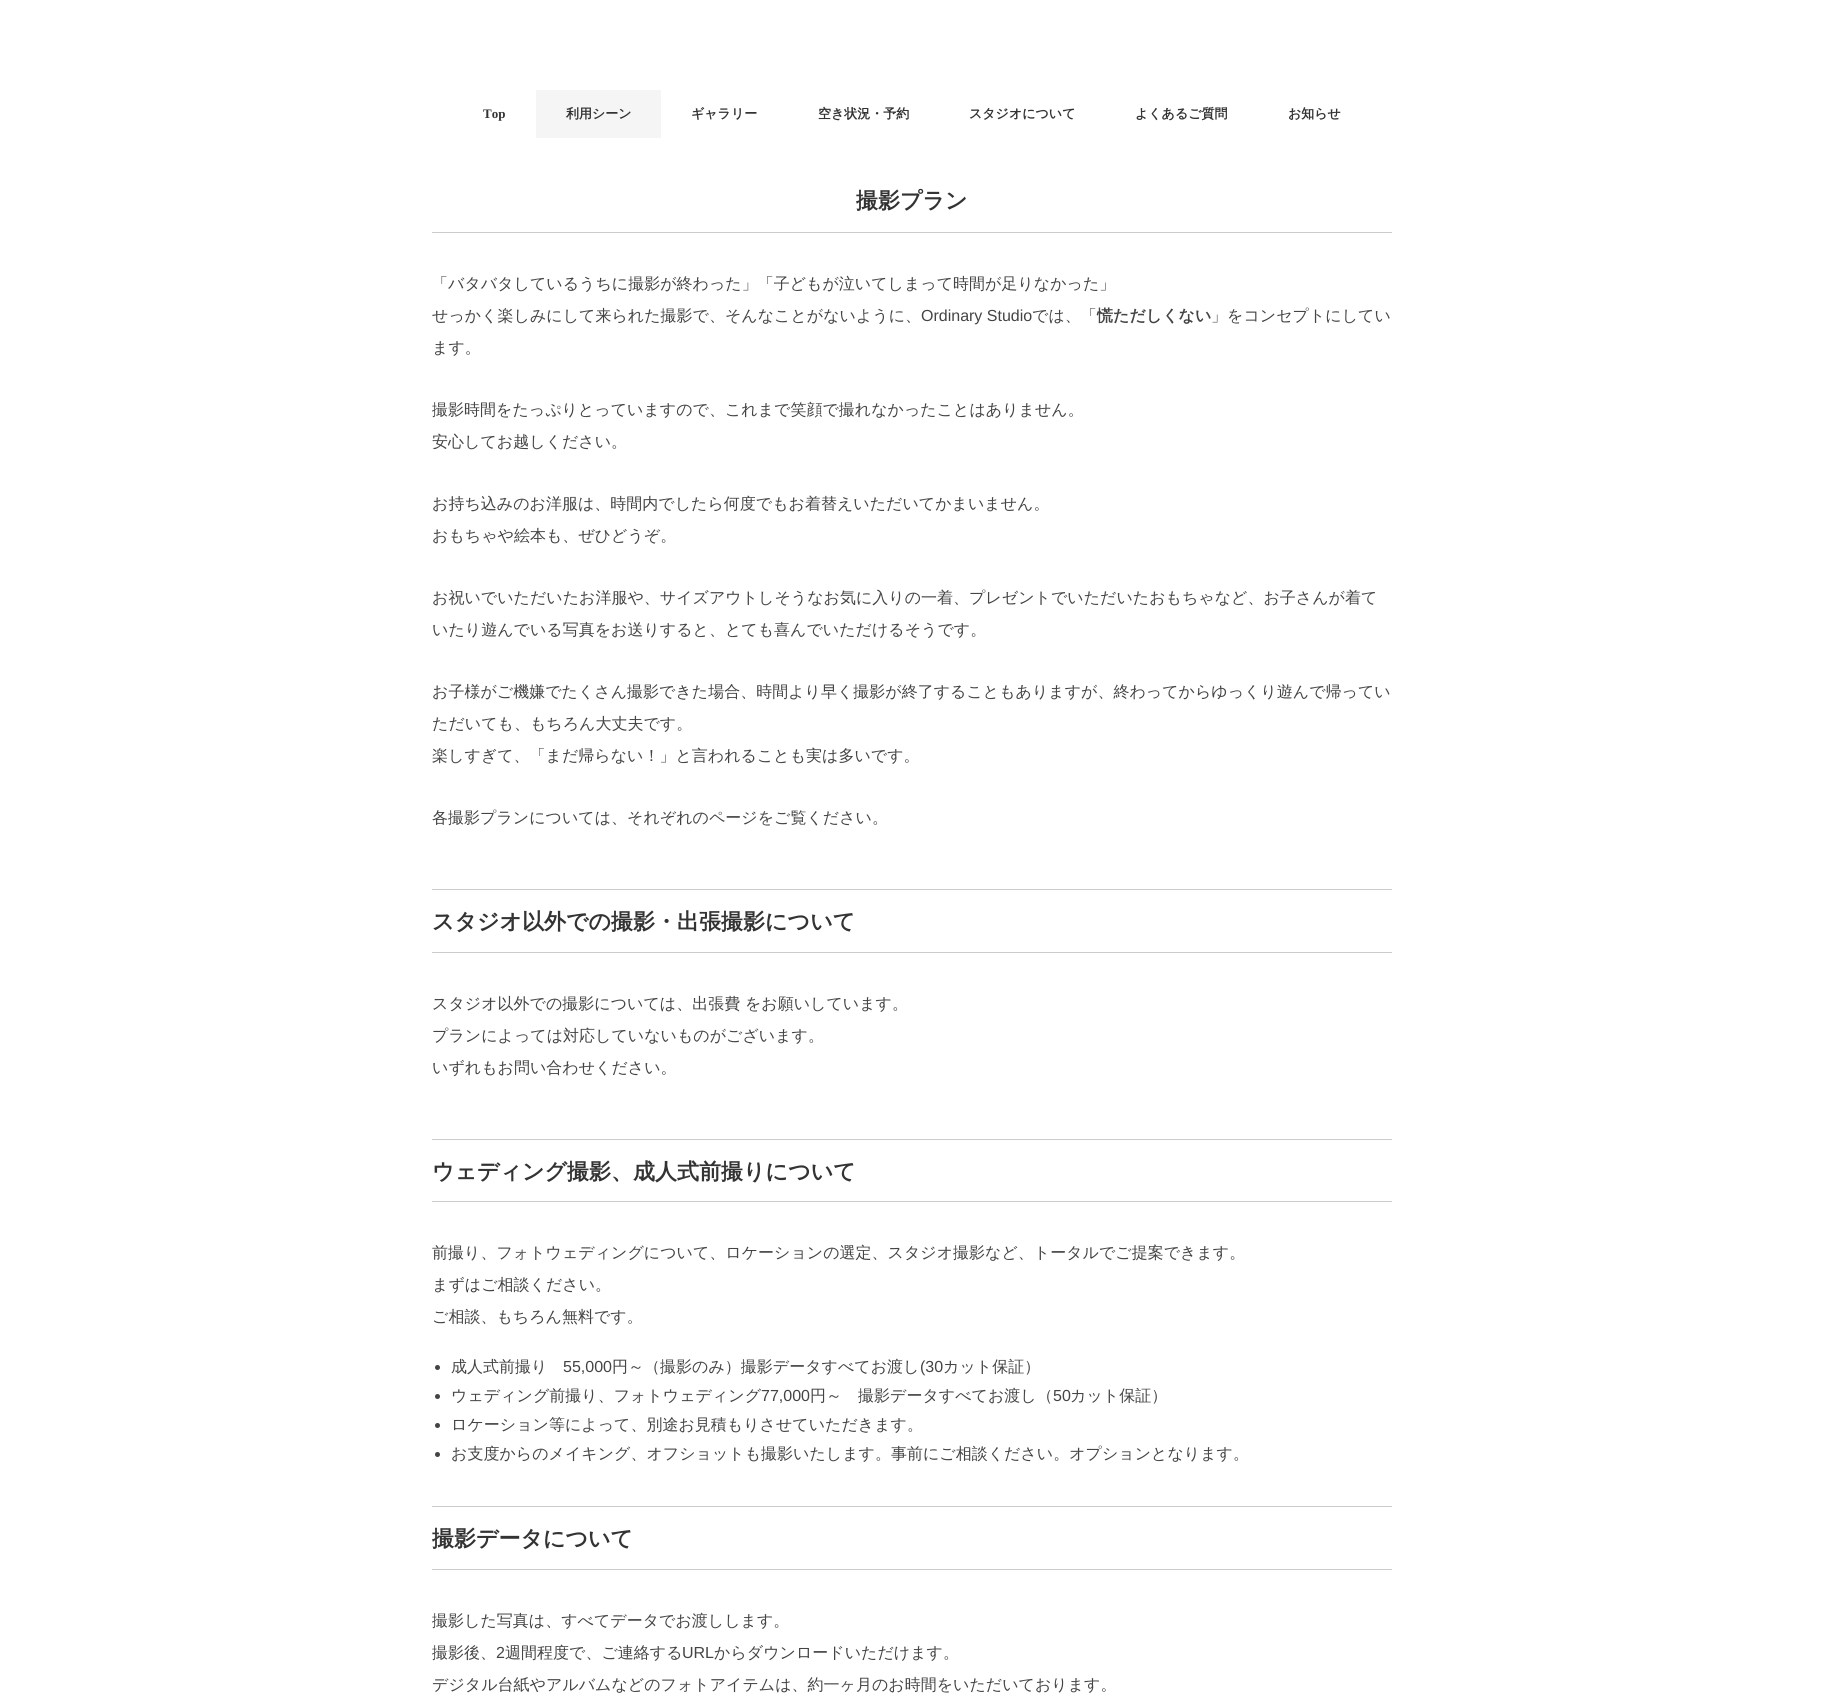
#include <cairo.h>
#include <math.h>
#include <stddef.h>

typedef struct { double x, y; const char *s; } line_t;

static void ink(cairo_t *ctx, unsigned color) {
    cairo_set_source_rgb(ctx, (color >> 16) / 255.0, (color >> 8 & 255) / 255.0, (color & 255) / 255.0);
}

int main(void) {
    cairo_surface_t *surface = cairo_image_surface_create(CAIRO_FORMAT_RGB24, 1824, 1705);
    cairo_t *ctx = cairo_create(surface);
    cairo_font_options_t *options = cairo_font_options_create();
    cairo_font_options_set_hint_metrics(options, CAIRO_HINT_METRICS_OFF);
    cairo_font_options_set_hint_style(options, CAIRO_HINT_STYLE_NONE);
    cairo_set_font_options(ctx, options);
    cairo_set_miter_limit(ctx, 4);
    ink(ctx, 0xFFFFFF);
    cairo_paint(ctx);
    cairo_select_font_face(ctx, "Liberation Serif", CAIRO_FONT_SLANT_NORMAL, CAIRO_FONT_WEIGHT_BOLD);
    cairo_set_font_size(ctx, 13);
    ink(ctx, 0x333333);
    cairo_move_to(ctx, 483, 118);
    cairo_show_text(ctx, "Top");
    ink(ctx, 0xF5F5F5);
    cairo_rectangle(ctx, 536, 90, 125, 48);
    cairo_fill(ctx);
    cairo_select_font_face(ctx, "WenQuanYi Zen Hei", CAIRO_FONT_SLANT_NORMAL, CAIRO_FONT_WEIGHT_BOLD);
    ink(ctx, 0x333333);
    {
        static const line_t items[] = {
            {566, 118, "利用シーン"},
            {691, 118, "ギャラリー"},
            {818, 118, "空き状況・予約"},
            {969, 118, "スタジオについて"},
            {1135, 118, "よくあるご質問"},
            {1288, 118, "お知らせ"},
        };
        for (size_t i = 0; i < sizeof items / sizeof *items; i++) {
            cairo_move_to(ctx, items[i].x, items[i].y);
            cairo_show_text(ctx, items[i].s);
        }
    }
    ink(ctx, 0xCCCCCC);
    cairo_rectangle(ctx, 432, 232, 960, 1);
    cairo_fill(ctx);
    cairo_set_font_size(ctx, 22);
    ink(ctx, 0x333333);
    cairo_move_to(ctx, 856, 208);
    cairo_show_text(ctx, "撮影プラン");
    cairo_select_font_face(ctx, "WenQuanYi Zen Hei Medium", CAIRO_FONT_SLANT_NORMAL, CAIRO_FONT_WEIGHT_NORMAL);
    cairo_set_font_size(ctx, 16);
    ink(ctx, 0x444444);
    cairo_move_to(ctx, 432, 289);
    cairo_show_text(ctx, "「バタバタしているうちに撮影が終わった」「子どもが泣いてしまって時間が足りなかった」");
    cairo_move_to(ctx, 432, 321);
    cairo_show_text(ctx, "せっかく楽しみにして来られた撮影で、そんなことがないように、");
    cairo_select_font_face(ctx, "Liberation Sans", CAIRO_FONT_SLANT_NORMAL, CAIRO_FONT_WEIGHT_NORMAL);
    cairo_move_to(ctx, 921, 321);
    cairo_show_text(ctx, "Ordinary Studio");
    cairo_select_font_face(ctx, "WenQuanYi Zen Hei Medium", CAIRO_FONT_SLANT_NORMAL, CAIRO_FONT_WEIGHT_NORMAL);
    cairo_move_to(ctx, 1032, 321);
    cairo_show_text(ctx, "では、「");
    cairo_select_font_face(ctx, "WenQuanYi Zen Hei", CAIRO_FONT_SLANT_NORMAL, CAIRO_FONT_WEIGHT_BOLD);
    cairo_move_to(ctx, 1097, 321);
    cairo_show_text(ctx, "慌ただしくない");
    cairo_select_font_face(ctx, "WenQuanYi Zen Hei Medium", CAIRO_FONT_SLANT_NORMAL, CAIRO_FONT_WEIGHT_NORMAL);
    {
        static const line_t items[] = {
            {1211, 321, "」をコンセプトにしてい"},
            {432, 353, "ます。"},
            {432, 415, "撮影時間をたっぷりとっていますので、これまで笑顔で撮れなかったことはありません。"},
            {432, 447, "安心してお越しください。"},
            {432, 509, "お持ち込みのお洋服は、時間内でしたら何度でもお着替えいただいてかまいません。"},
            {432, 541, "おもちゃや絵本も、ぜひどうぞ。"},
            {432, 603, "お祝いでいただいたお洋服や、サイズアウトしそうなお気に入りの一着、プレゼントでいただいたおもちゃなど、お子さんが着て"},
            {432, 635, "いたり遊んでいる写真をお送りすると、とても喜んでいただけるそうです。"},
            {432, 697, "お子様がご機嫌でたくさん撮影できた場合、時間より早く撮影が終了することもありますが、終わってからゆっくり遊んで帰ってい"},
            {432, 729, "ただいても、もちろん大丈夫です。"},
            {432, 761, "楽しすぎて、「まだ帰らない！」と言われることも実は多いです。"},
            {432, 823, "各撮影プランについては、それぞれのページをご覧ください。"},
        };
        for (size_t i = 0; i < sizeof items / sizeof *items; i++) {
            cairo_move_to(ctx, items[i].x, items[i].y);
            cairo_show_text(ctx, items[i].s);
        }
    }
    ink(ctx, 0xCCCCCC);
    cairo_rectangle(ctx, 432, 889, 960, 1);
    cairo_fill(ctx);
    cairo_rectangle(ctx, 432, 952, 960, 1);
    cairo_fill(ctx);
    cairo_select_font_face(ctx, "WenQuanYi Zen Hei", CAIRO_FONT_SLANT_NORMAL, CAIRO_FONT_WEIGHT_BOLD);
    cairo_set_font_size(ctx, 22);
    ink(ctx, 0x333333);
    cairo_move_to(ctx, 432, 929);
    cairo_show_text(ctx, "スタジオ以外での撮影・出張撮影について");
    cairo_select_font_face(ctx, "WenQuanYi Zen Hei Medium", CAIRO_FONT_SLANT_NORMAL, CAIRO_FONT_WEIGHT_NORMAL);
    cairo_set_font_size(ctx, 16);
    ink(ctx, 0x444444);
    {
        static const line_t items[] = {
            {432, 1009, "スタジオ以外での撮影については、出張費 をお願いしています。"},
            {432, 1041, "プランによっては対応していないものがございます。"},
            {432, 1073, "いずれもお問い合わせください。"},
        };
        for (size_t i = 0; i < sizeof items / sizeof *items; i++) {
            cairo_move_to(ctx, items[i].x, items[i].y);
            cairo_show_text(ctx, items[i].s);
        }
    }
    ink(ctx, 0xCCCCCC);
    cairo_rectangle(ctx, 432, 1139, 960, 1);
    cairo_fill(ctx);
    cairo_rectangle(ctx, 432, 1201, 960, 1);
    cairo_fill(ctx);
    cairo_select_font_face(ctx, "WenQuanYi Zen Hei", CAIRO_FONT_SLANT_NORMAL, CAIRO_FONT_WEIGHT_BOLD);
    cairo_set_font_size(ctx, 22);
    ink(ctx, 0x333333);
    cairo_move_to(ctx, 432, 1179);
    cairo_show_text(ctx, "ウェディング撮影、成人式前撮りについて");
    cairo_select_font_face(ctx, "WenQuanYi Zen Hei Medium", CAIRO_FONT_SLANT_NORMAL, CAIRO_FONT_WEIGHT_NORMAL);
    cairo_set_font_size(ctx, 16);
    ink(ctx, 0x444444);
    {
        static const line_t items[] = {
            {432, 1258, "前撮り、フォトウェディングについて、ロケーションの選定、スタジオ撮影など、トータルでご提案できます。"},
            {432, 1290, "まずはご相談ください。"},
            {432, 1322, "ご相談、もちろん無料です。"},
        };
        for (size_t i = 0; i < sizeof items / sizeof *items; i++) {
            cairo_move_to(ctx, items[i].x, items[i].y);
            cairo_show_text(ctx, items[i].s);
        }
    }
    cairo_new_path(ctx);
    cairo_arc(ctx, 437.5, 1367.5, 2.5, 0, 2 * M_PI);
    cairo_fill(ctx);
    cairo_move_to(ctx, 451, 1372);
    cairo_show_text(ctx, "成人式前撮り");
    cairo_select_font_face(ctx, "Liberation Sans", CAIRO_FONT_SLANT_NORMAL, CAIRO_FONT_WEIGHT_NORMAL);
    cairo_move_to(ctx, 563, 1372);
    cairo_show_text(ctx, "55,000");
    cairo_select_font_face(ctx, "WenQuanYi Zen Hei Medium", CAIRO_FONT_SLANT_NORMAL, CAIRO_FONT_WEIGHT_NORMAL);
    cairo_move_to(ctx, 612, 1372);
    cairo_show_text(ctx, "円～（撮影のみ）撮影データすべてお渡し");
    cairo_select_font_face(ctx, "Liberation Sans", CAIRO_FONT_SLANT_NORMAL, CAIRO_FONT_WEIGHT_NORMAL);
    cairo_move_to(ctx, 920, 1372);
    cairo_show_text(ctx, "(30");
    cairo_select_font_face(ctx, "WenQuanYi Zen Hei Medium", CAIRO_FONT_SLANT_NORMAL, CAIRO_FONT_WEIGHT_NORMAL);
    cairo_move_to(ctx, 943, 1372);
    cairo_show_text(ctx, "カット保証）");
    cairo_new_path(ctx);
    cairo_arc(ctx, 437.5, 1396.5, 2.5, 0, 2 * M_PI);
    cairo_fill(ctx);
    cairo_move_to(ctx, 451, 1401);
    cairo_show_text(ctx, "ウェディング前撮り、フォトウェディング");
    cairo_select_font_face(ctx, "Liberation Sans", CAIRO_FONT_SLANT_NORMAL, CAIRO_FONT_WEIGHT_NORMAL);
    cairo_move_to(ctx, 761, 1401);
    cairo_show_text(ctx, "77,000");
    cairo_select_font_face(ctx, "WenQuanYi Zen Hei Medium", CAIRO_FONT_SLANT_NORMAL, CAIRO_FONT_WEIGHT_NORMAL);
    cairo_move_to(ctx, 810, 1401);
    cairo_show_text(ctx, "円～　撮影データすべてお渡し（");
    cairo_select_font_face(ctx, "Liberation Sans", CAIRO_FONT_SLANT_NORMAL, CAIRO_FONT_WEIGHT_NORMAL);
    cairo_move_to(ctx, 1053, 1401);
    cairo_show_text(ctx, "50");
    cairo_select_font_face(ctx, "WenQuanYi Zen Hei Medium", CAIRO_FONT_SLANT_NORMAL, CAIRO_FONT_WEIGHT_NORMAL);
    cairo_move_to(ctx, 1070, 1401);
    cairo_show_text(ctx, "カット保証）");
    cairo_new_path(ctx);
    cairo_arc(ctx, 437.5, 1425.5, 2.5, 0, 2 * M_PI);
    cairo_fill(ctx);
    cairo_move_to(ctx, 451, 1430);
    cairo_show_text(ctx, "ロケーション等によって、別途お見積もりさせていただきます。");
    cairo_new_path(ctx);
    cairo_arc(ctx, 437.5, 1454.5, 2.5, 0, 2 * M_PI);
    cairo_fill(ctx);
    cairo_move_to(ctx, 451, 1459);
    cairo_show_text(ctx, "お支度からのメイキング、オフショットも撮影いたします。事前にご相談ください。オプションとなります。");
    ink(ctx, 0xCCCCCC);
    cairo_rectangle(ctx, 432, 1506, 960, 1);
    cairo_fill(ctx);
    cairo_rectangle(ctx, 432, 1569, 960, 1);
    cairo_fill(ctx);
    cairo_select_font_face(ctx, "WenQuanYi Zen Hei", CAIRO_FONT_SLANT_NORMAL, CAIRO_FONT_WEIGHT_BOLD);
    cairo_set_font_size(ctx, 22);
    ink(ctx, 0x333333);
    cairo_move_to(ctx, 432, 1546);
    cairo_show_text(ctx, "撮影データについて");
    cairo_select_font_face(ctx, "WenQuanYi Zen Hei Medium", CAIRO_FONT_SLANT_NORMAL, CAIRO_FONT_WEIGHT_NORMAL);
    cairo_set_font_size(ctx, 16);
    ink(ctx, 0x444444);
    cairo_move_to(ctx, 432, 1626);
    cairo_show_text(ctx, "撮影した写真は、すべてデータでお渡しします。");
    cairo_move_to(ctx, 432, 1658);
    cairo_show_text(ctx, "撮影後、");
    cairo_select_font_face(ctx, "Liberation Sans", CAIRO_FONT_SLANT_NORMAL, CAIRO_FONT_WEIGHT_NORMAL);
    cairo_move_to(ctx, 496, 1658);
    cairo_show_text(ctx, "2");
    cairo_select_font_face(ctx, "WenQuanYi Zen Hei Medium", CAIRO_FONT_SLANT_NORMAL, CAIRO_FONT_WEIGHT_NORMAL);
    cairo_move_to(ctx, 505, 1658);
    cairo_show_text(ctx, "週間程度で、ご連絡する");
    cairo_select_font_face(ctx, "Liberation Sans", CAIRO_FONT_SLANT_NORMAL, CAIRO_FONT_WEIGHT_NORMAL);
    cairo_move_to(ctx, 682, 1658);
    cairo_show_text(ctx, "URL");
    cairo_select_font_face(ctx, "WenQuanYi Zen Hei Medium", CAIRO_FONT_SLANT_NORMAL, CAIRO_FONT_WEIGHT_NORMAL);
    cairo_move_to(ctx, 714, 1658);
    cairo_show_text(ctx, "からダウンロードいただけます。");
    cairo_move_to(ctx, 432, 1690);
    cairo_show_text(ctx, "デジタル台紙やアルバムなどのフォトアイテムは、約一ヶ月のお時間をいただいております。");
    cairo_surface_write_to_png(surface, "image.png");
    cairo_font_options_destroy(options);
    cairo_destroy(ctx);
    cairo_surface_destroy(surface);
    return 0;
}
